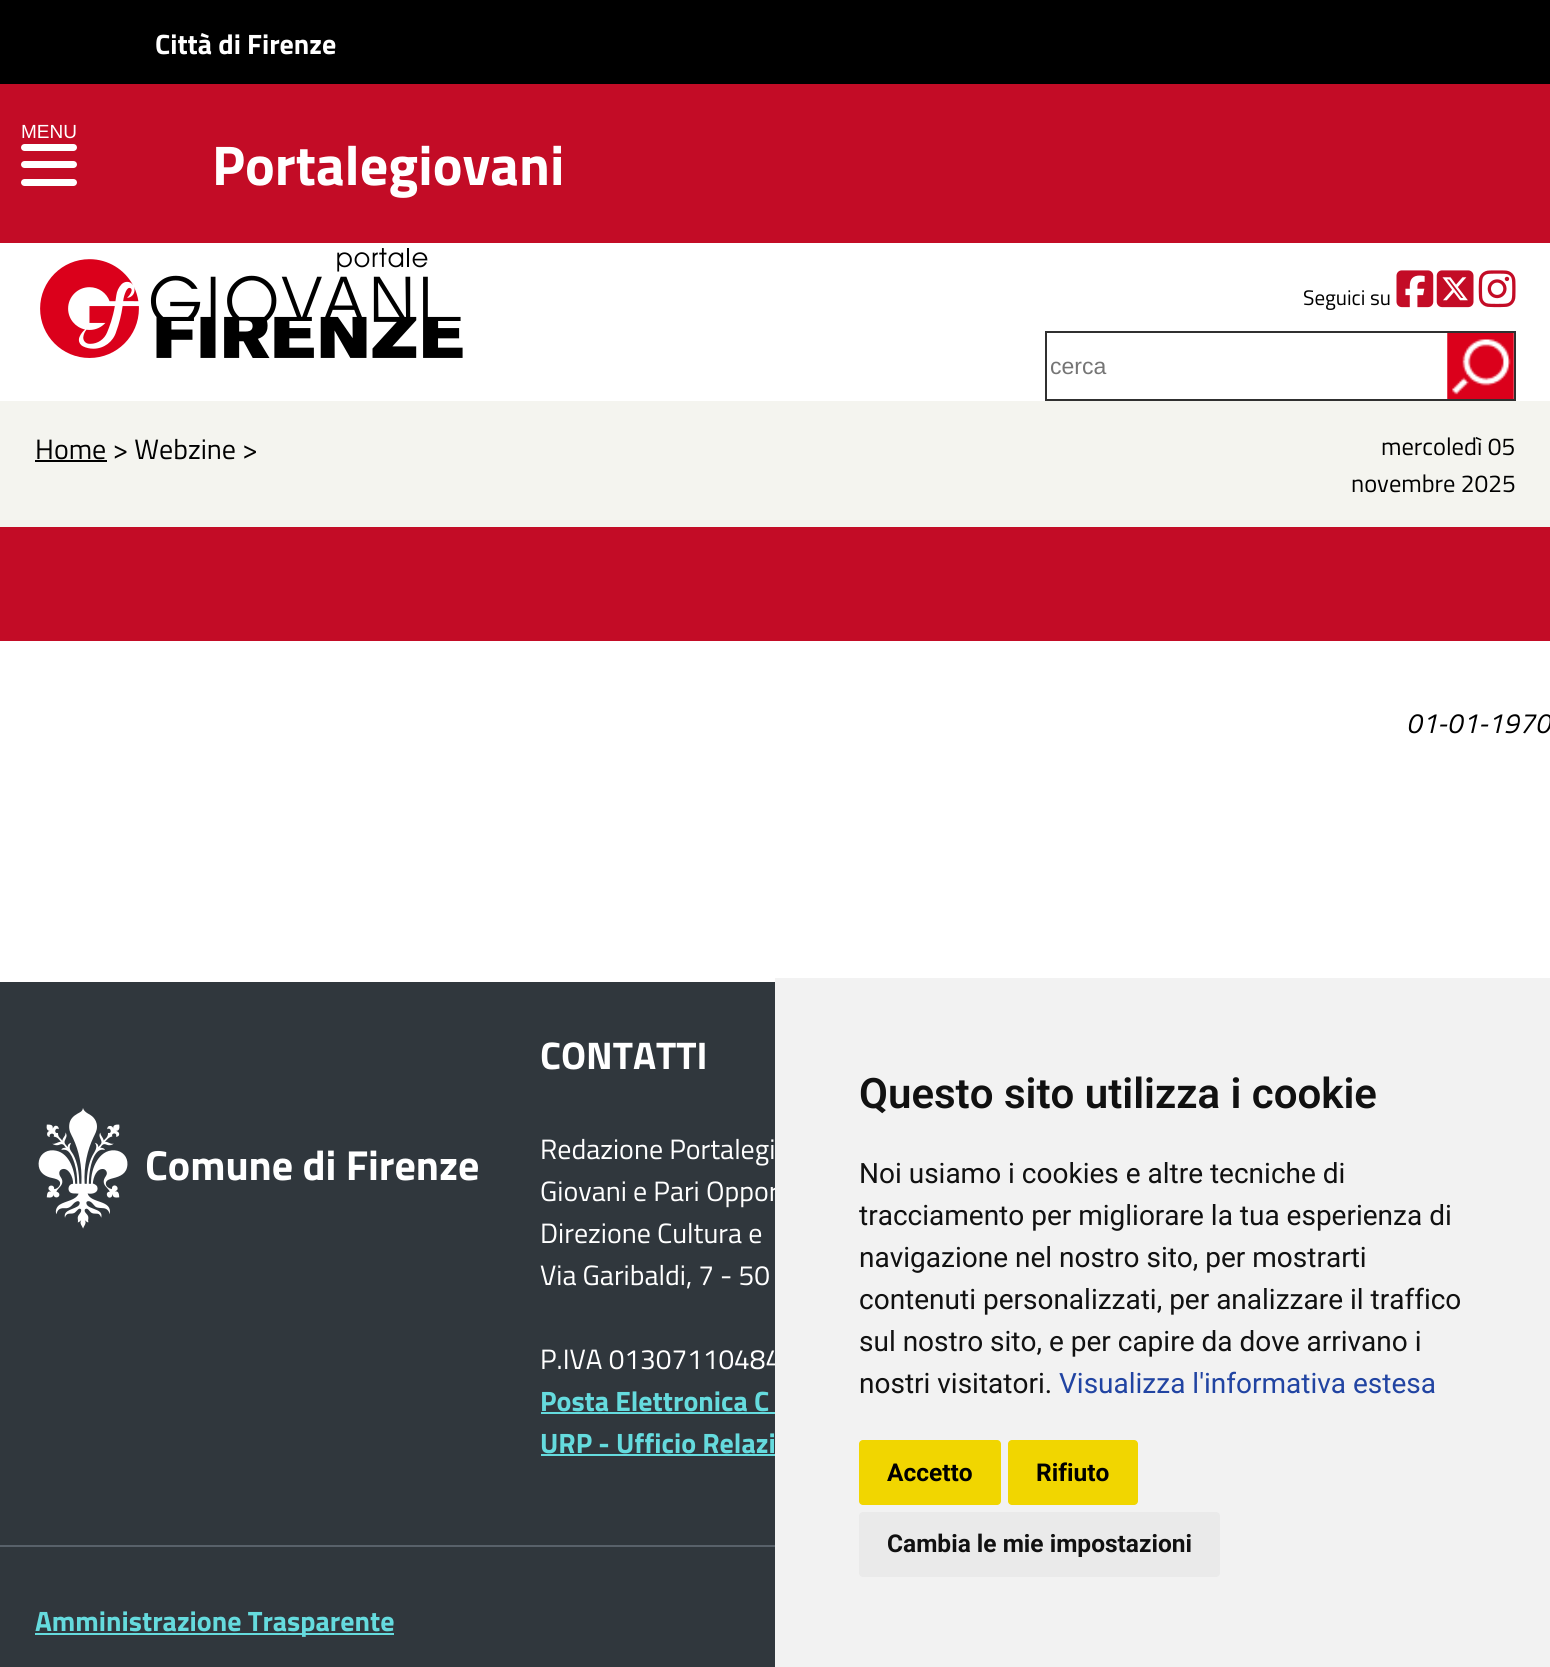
#include <cairo.h>
#include <math.h>
#include <stddef.h>

typedef struct { double x, y; const char *s; } line_t;
typedef struct { double x, y, w, h; unsigned color; } box_t;

static void ink(cairo_t *ctx, unsigned color) {
    cairo_set_source_rgb(ctx, (color >> 16) / 255.0, (color >> 8 & 255) / 255.0, (color & 255) / 255.0);
}

static void round_path(cairo_t *ctx, double x, double y, double w, double h, double r) {
    cairo_new_sub_path(ctx);
    cairo_arc(ctx, x + w - r, y + h - r, r, 0, M_PI / 2);
    cairo_arc(ctx, x + r, y + h - r, r, M_PI / 2, M_PI);
    cairo_arc(ctx, x + r, y + r, r, M_PI, 1.5 * M_PI);
    cairo_arc(ctx, x + w - r, y + r, r, 1.5 * M_PI, 2 * M_PI);
    cairo_close_path(ctx);
}

static void paste(cairo_t *ctx, const char *path, double x, double y, double w, double h) {
    cairo_surface_t *image = cairo_image_surface_create_from_png(path);
    cairo_save(ctx);
    cairo_set_source_surface(ctx, image, x, y);
    cairo_rectangle(ctx, x, y, w, h);
    cairo_fill(ctx);
    cairo_restore(ctx);
    cairo_surface_destroy(image);
}

int main(void) {
    cairo_surface_t *surface = cairo_image_surface_create(CAIRO_FORMAT_RGB24, 1550, 1667);
    cairo_t *ctx = cairo_create(surface);
    cairo_font_options_t *options = cairo_font_options_create();
    cairo_font_options_set_hint_metrics(options, CAIRO_HINT_METRICS_OFF);
    cairo_font_options_set_hint_style(options, CAIRO_HINT_STYLE_NONE);
    cairo_set_font_options(ctx, options);
    cairo_set_miter_limit(ctx, 4);
    ink(ctx, 0xFFFFFF);
    cairo_paint(ctx);
    ink(ctx, 0xC30C26);
    cairo_rectangle(ctx, 0, 84, 1550, 159);
    cairo_fill(ctx);
    cairo_select_font_face(ctx, "Liberation Sans", CAIRO_FONT_SLANT_NORMAL, CAIRO_FONT_WEIGHT_NORMAL);
    cairo_set_font_size(ctx, 19);
    ink(ctx, 0xFFFFFF);
    cairo_move_to(ctx, 21, 138);
    cairo_show_text(ctx, "MENU");
    round_path(ctx, 21, 161, 56, 7, 3.5);
    cairo_fill(ctx);
    round_path(ctx, 21, 144, 56, 7, 3.5);
    cairo_fill(ctx);
    round_path(ctx, 21, 179, 56, 7, 3.5);
    cairo_fill(ctx);
    ink(ctx, 0x000000);
    cairo_rectangle(ctx, 0, 0, 1550, 84);
    cairo_fill(ctx);
    cairo_select_font_face(ctx, "Titillium Web", CAIRO_FONT_SLANT_NORMAL, CAIRO_FONT_WEIGHT_BOLD);
    cairo_set_font_size(ctx, 28);
    ink(ctx, 0xFFFFFF);
    cairo_move_to(ctx, 155, 54);
    cairo_show_text(ctx, "Città di Firenze");
    cairo_set_font_size(ctx, 56);
    cairo_move_to(ctx, 212, 185);
    cairo_show_text(ctx, "Portalegiovani");
    paste(ctx, "media/1.png", 40, 248, 423, 110);
    cairo_select_font_face(ctx, "Titillium Web", CAIRO_FONT_SLANT_NORMAL, CAIRO_FONT_WEIGHT_NORMAL);
    cairo_set_font_size(ctx, 21);
    ink(ctx, 0x000000);
    cairo_move_to(ctx, 1303, 305);
    cairo_show_text(ctx, "Seguici su");
    paste(ctx, "media/2.png", 1396, 270, 38, 38);
    paste(ctx, "media/3.png", 1436, 270, 38, 38);
    paste(ctx, "media/4.png", 1478, 270, 38, 38);
    paste(ctx, "media/5.png", 1447, 333, 67, 66);
    cairo_rectangle(ctx, 1046, 332, 469, 68);
    ink(ctx, 0x303030);
    cairo_stroke(ctx);
    cairo_select_font_face(ctx, "Liberation Sans", CAIRO_FONT_SLANT_NORMAL, CAIRO_FONT_WEIGHT_NORMAL);
    cairo_set_font_size(ctx, 23);
    ink(ctx, 0x757575);
    cairo_move_to(ctx, 1050, 374);
    cairo_show_text(ctx, "cerca");
    ink(ctx, 0xF4F4EF);
    cairo_rectangle(ctx, 0, 401, 1550, 126);
    cairo_fill(ctx);
    cairo_select_font_face(ctx, "Titillium Web", CAIRO_FONT_SLANT_NORMAL, CAIRO_FONT_WEIGHT_NORMAL);
    cairo_set_font_size(ctx, 28);
    ink(ctx, 0x000000);
    cairo_move_to(ctx, 35, 459);
    cairo_show_text(ctx, "Home > Webzine >");
    cairo_rectangle(ctx, 35, 460, 72, 2);
    cairo_fill(ctx);
    cairo_set_font_size(ctx, 24.5);
    cairo_move_to(ctx, 1381, 455);
    cairo_show_text(ctx, "mercoledì 05");
    cairo_move_to(ctx, 1351, 492);
    cairo_show_text(ctx, "novembre 2025");
    ink(ctx, 0xC30C26);
    cairo_rectangle(ctx, 0, 527, 1550, 114);
    cairo_fill(ctx);
    cairo_select_font_face(ctx, "Titillium Web", CAIRO_FONT_SLANT_ITALIC, CAIRO_FONT_WEIGHT_NORMAL);
    cairo_set_font_size(ctx, 28);
    ink(ctx, 0x000000);
    cairo_move_to(ctx, 1406, 733);
    cairo_show_text(ctx, "01-01-1970");
    ink(ctx, 0x30373D);
    cairo_rectangle(ctx, 0, 982, 775, 685);
    cairo_fill(ctx);
    paste(ctx, "media/6.png", 38, 1108, 90, 121);
    cairo_select_font_face(ctx, "Titillium Web", CAIRO_FONT_SLANT_NORMAL, CAIRO_FONT_WEIGHT_BOLD);
    cairo_set_font_size(ctx, 42);
    ink(ctx, 0xFFFFFF);
    cairo_move_to(ctx, 145, 1180);
    cairo_show_text(ctx, "Comune di Firenze");
    cairo_set_font_size(ctx, 38.5);
    cairo_move_to(ctx, 540, 1069);
    cairo_show_text(ctx, "CONTATTI");
    cairo_select_font_face(ctx, "Titillium Web", CAIRO_FONT_SLANT_NORMAL, CAIRO_FONT_WEIGHT_NORMAL);
    cairo_set_font_size(ctx, 28);
    {
        static const line_t items[] = {
            {540, 1159, "Redazione Portalegi"},
            {540, 1201, "Giovani e Pari Oppor"},
            {540, 1243, "Direzione Cultura e"},
            {540, 1285, "Via Garibaldi, 7 - 50"},
            {540, 1369, "P.IVA 01307110484"},
        };
        for (size_t i = 0; i < sizeof items / sizeof *items; i++) {
            cairo_move_to(ctx, items[i].x, items[i].y);
            cairo_show_text(ctx, items[i].s);
        }
    }
    cairo_select_font_face(ctx, "Titillium Web", CAIRO_FONT_SLANT_NORMAL, CAIRO_FONT_WEIGHT_BOLD);
    ink(ctx, 0x65DBDE);
    cairo_move_to(ctx, 540, 1411);
    cairo_show_text(ctx, "Posta Elettronica C");
    cairo_rectangle(ctx, 541, 1412, 234, 2);
    cairo_fill(ctx);
    cairo_move_to(ctx, 540, 1453);
    cairo_show_text(ctx, "URP - Ufficio Relazi");
    {
        static const box_t items[] = {
            {541, 1454, 234, 2, 0x65DBDE},
            {0, 1545, 775, 2, 0x58616A},
            {35, 1633, 359, 2, 0x65DBDE},
        };
        for (size_t i = 0; i < sizeof items / sizeof *items; i++) {
            ink(ctx, items[i].color);
            cairo_rectangle(ctx, items[i].x, items[i].y, items[i].w, items[i].h);
            cairo_fill(ctx);
        }
    }
    cairo_move_to(ctx, 35, 1631);
    cairo_show_text(ctx, "Amministrazione Trasparente");
    ink(ctx, 0xF2F2F2);
    cairo_rectangle(ctx, 775, 978, 775, 689);
    cairo_fill(ctx);
    cairo_select_font_face(ctx, "Roboto SemiBold", CAIRO_FONT_SLANT_NORMAL, CAIRO_FONT_WEIGHT_NORMAL);
    cairo_set_font_size(ctx, 42);
    ink(ctx, 0x111111);
    cairo_move_to(ctx, 859, 1108);
    cairo_show_text(ctx, "Questo sito utilizza i cookie");
    cairo_select_font_face(ctx, "Roboto", CAIRO_FONT_SLANT_NORMAL, CAIRO_FONT_WEIGHT_NORMAL);
    cairo_set_font_size(ctx, 28);
    {
        static const line_t items[] = {
            {859, 1183, "Noi usiamo i cookies e altre tecniche di"},
            {859, 1225, "tracciamento per migliorare la tua esperienza di"},
            {859, 1267, "navigazione nel nostro sito, per mostrarti"},
            {859, 1309, "contenuti personalizzati, per analizzare il traffico"},
            {859, 1351, "sul nostro sito, e per capire da dove arrivano i"},
            {859, 1393, "nostri visitatori."},
        };
        for (size_t i = 0; i < sizeof items / sizeof *items; i++) {
            cairo_move_to(ctx, items[i].x, items[i].y);
            cairo_show_text(ctx, items[i].s);
        }
    }
    ink(ctx, 0x2144A2);
    cairo_move_to(ctx, 1059, 1393);
    cairo_show_text(ctx, "Visualizza l'informativa estesa");
    ink(ctx, 0xF1D600);
    round_path(ctx, 859, 1440, 142, 65, 4);
    cairo_fill(ctx);
    cairo_select_font_face(ctx, "Roboto", CAIRO_FONT_SLANT_NORMAL, CAIRO_FONT_WEIGHT_BOLD);
    cairo_set_font_size(ctx, 24.5);
    ink(ctx, 0x000000);
    cairo_move_to(ctx, 887, 1481);
    cairo_show_text(ctx, "Accetto");
    ink(ctx, 0xF1D600);
    round_path(ctx, 1008, 1440, 130, 65, 4);
    cairo_fill(ctx);
    ink(ctx, 0x000000);
    cairo_move_to(ctx, 1036, 1481);
    cairo_show_text(ctx, "Rifiuto");
    ink(ctx, 0xEAEAEA);
    round_path(ctx, 859, 1512, 361, 65, 4);
    cairo_fill(ctx);
    ink(ctx, 0x111111);
    cairo_move_to(ctx, 887, 1552);
    cairo_show_text(ctx, "Cambia le mie impostazioni");
    cairo_surface_write_to_png(surface, "image.png");
    cairo_font_options_destroy(options);
    cairo_destroy(ctx);
    cairo_surface_destroy(surface);
    return 0;
}
